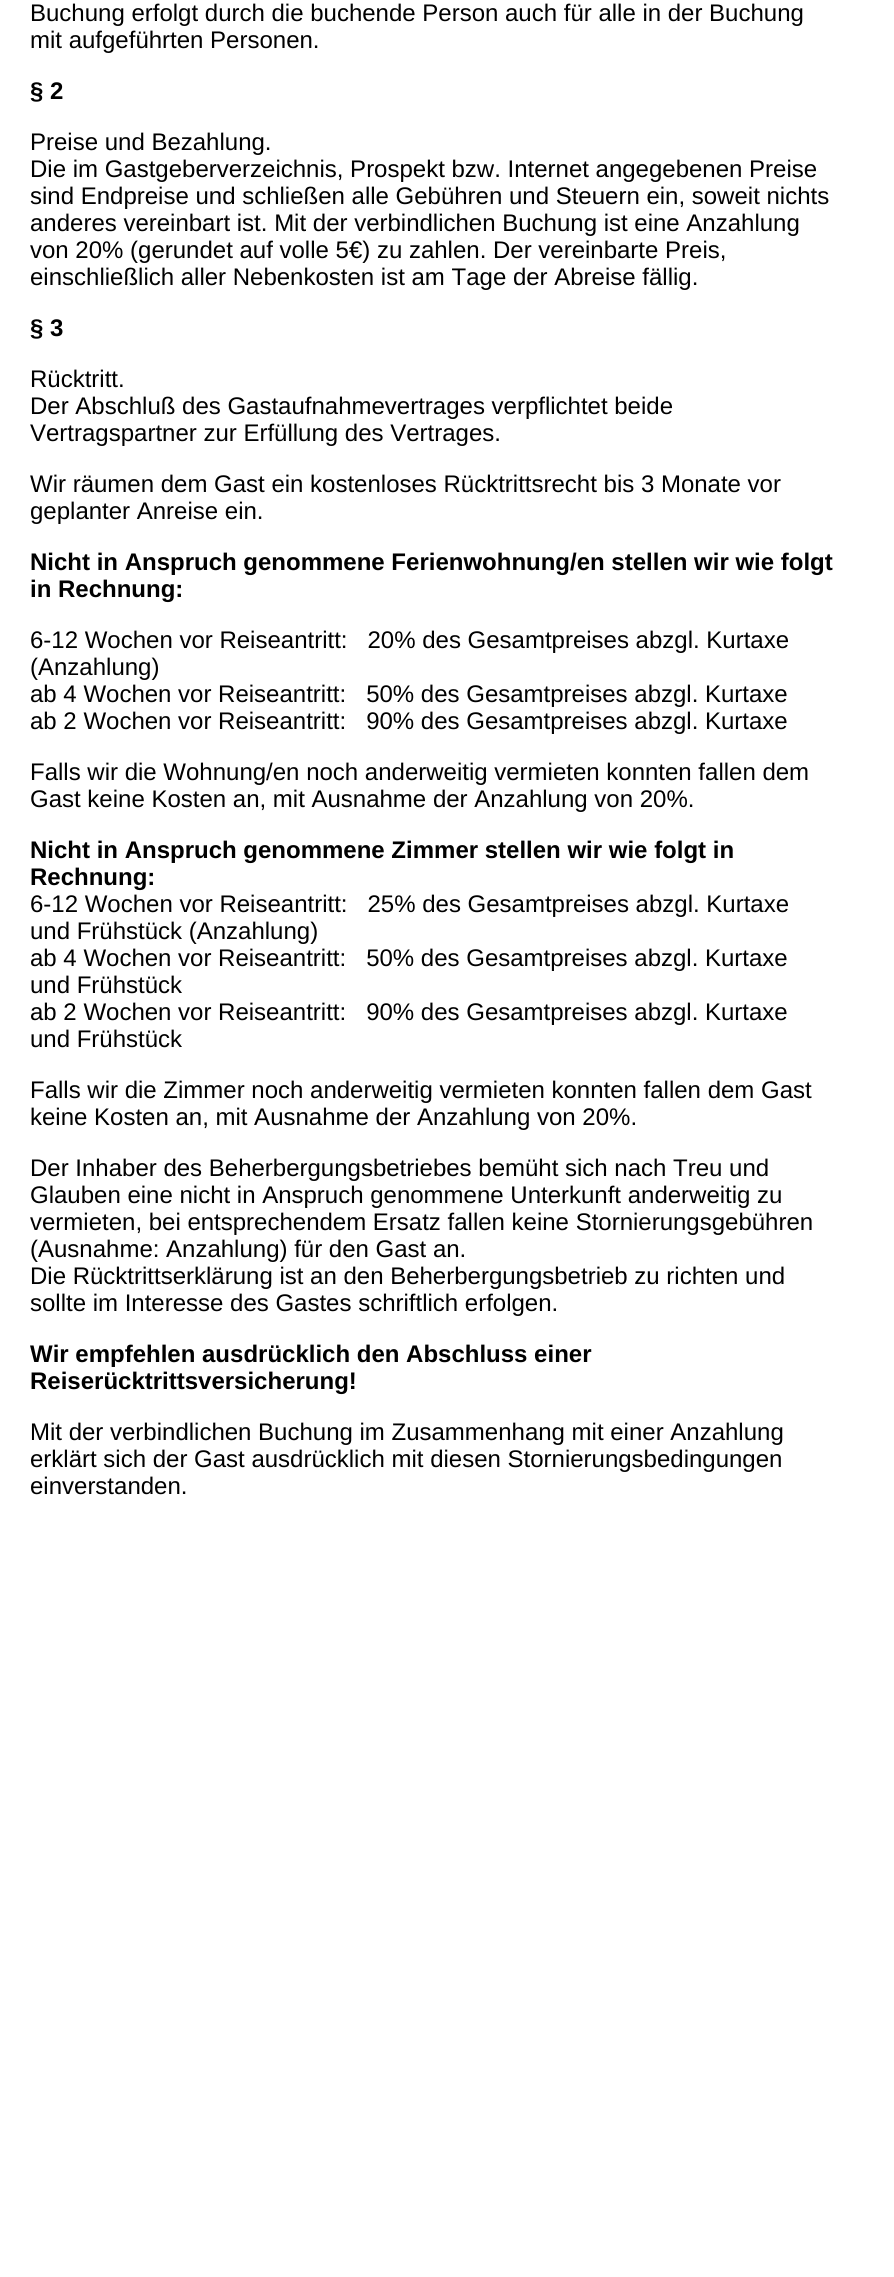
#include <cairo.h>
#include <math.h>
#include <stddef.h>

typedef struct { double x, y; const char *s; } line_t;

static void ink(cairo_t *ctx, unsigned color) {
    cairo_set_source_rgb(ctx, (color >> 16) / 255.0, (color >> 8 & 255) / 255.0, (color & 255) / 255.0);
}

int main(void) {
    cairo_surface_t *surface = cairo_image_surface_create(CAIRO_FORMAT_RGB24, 894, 2277);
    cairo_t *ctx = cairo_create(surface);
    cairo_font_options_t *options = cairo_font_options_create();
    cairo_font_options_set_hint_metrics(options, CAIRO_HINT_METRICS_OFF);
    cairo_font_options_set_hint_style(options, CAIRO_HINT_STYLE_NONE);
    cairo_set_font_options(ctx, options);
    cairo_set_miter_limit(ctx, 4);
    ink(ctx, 0xFFFFFF);
    cairo_paint(ctx);
    cairo_select_font_face(ctx, "Liberation Sans", CAIRO_FONT_SLANT_NORMAL, CAIRO_FONT_WEIGHT_NORMAL);
    cairo_set_font_size(ctx, 24);
    ink(ctx, 0x000000);
    cairo_move_to(ctx, 30, 21);
    cairo_show_text(ctx, "Buchung erfolgt durch die buchende Person auch für alle in der Buchung");
    cairo_move_to(ctx, 30, 48);
    cairo_show_text(ctx, "mit aufgeführten Personen.");
    cairo_select_font_face(ctx, "Liberation Sans", CAIRO_FONT_SLANT_NORMAL, CAIRO_FONT_WEIGHT_BOLD);
    cairo_move_to(ctx, 30, 99);
    cairo_show_text(ctx, "§ 2");
    cairo_select_font_face(ctx, "Liberation Sans", CAIRO_FONT_SLANT_NORMAL, CAIRO_FONT_WEIGHT_NORMAL);
    {
        static const line_t items[] = {
            {30, 150, "Preise und Bezahlung."},
            {30, 177, "Die im Gastgeberverzeichnis, Prospekt bzw. Internet angegebenen Preise"},
            {30, 204, "sind Endpreise und schließen alle Gebühren und Steuern ein, soweit nichts"},
            {30, 231, "anderes vereinbart ist. Mit der verbindlichen Buchung ist eine Anzahlung"},
            {30, 258, "von 20% (gerundet auf volle 5€) zu zahlen. Der vereinbarte Preis,"},
            {30, 285, "einschließlich aller Nebenkosten ist am Tage der Abreise fällig."},
        };
        for (size_t i = 0; i < sizeof items / sizeof *items; i++) {
            cairo_move_to(ctx, items[i].x, items[i].y);
            cairo_show_text(ctx, items[i].s);
        }
    }
    cairo_select_font_face(ctx, "Liberation Sans", CAIRO_FONT_SLANT_NORMAL, CAIRO_FONT_WEIGHT_BOLD);
    cairo_move_to(ctx, 30, 336);
    cairo_show_text(ctx, "§ 3");
    cairo_select_font_face(ctx, "Liberation Sans", CAIRO_FONT_SLANT_NORMAL, CAIRO_FONT_WEIGHT_NORMAL);
    {
        static const line_t items[] = {
            {30, 387, "Rücktritt."},
            {30, 414, "Der Abschluß des Gastaufnahmevertrages verpflichtet beide"},
            {30, 441, "Vertragspartner zur Erfüllung des Vertrages."},
            {30, 492, "Wir räumen dem Gast ein kostenloses Rücktrittsrecht bis 3 Monate vor"},
            {30, 519, "geplanter Anreise ein."},
        };
        for (size_t i = 0; i < sizeof items / sizeof *items; i++) {
            cairo_move_to(ctx, items[i].x, items[i].y);
            cairo_show_text(ctx, items[i].s);
        }
    }
    cairo_select_font_face(ctx, "Liberation Sans", CAIRO_FONT_SLANT_NORMAL, CAIRO_FONT_WEIGHT_BOLD);
    cairo_move_to(ctx, 30, 570);
    cairo_show_text(ctx, "Nicht in Anspruch genommene Ferienwohnung/en stellen wir wie folgt");
    cairo_move_to(ctx, 30, 597);
    cairo_show_text(ctx, "in Rechnung:");
    cairo_select_font_face(ctx, "Liberation Sans", CAIRO_FONT_SLANT_NORMAL, CAIRO_FONT_WEIGHT_NORMAL);
    {
        static const line_t items[] = {
            {30, 648, "6-12 Wochen vor Reiseantritt:   20% des Gesamtpreises abzgl. Kurtaxe"},
            {30, 675, "(Anzahlung)"},
            {30, 702, "ab 4 Wochen vor Reiseantritt:   50% des Gesamtpreises abzgl. Kurtaxe"},
            {30, 729, "ab 2 Wochen vor Reiseantritt:   90% des Gesamtpreises abzgl. Kurtaxe"},
            {30, 780, "Falls wir die Wohnung/en noch anderweitig vermieten konnten fallen dem"},
            {30, 807, "Gast keine Kosten an, mit Ausnahme der Anzahlung von 20%."},
        };
        for (size_t i = 0; i < sizeof items / sizeof *items; i++) {
            cairo_move_to(ctx, items[i].x, items[i].y);
            cairo_show_text(ctx, items[i].s);
        }
    }
    cairo_select_font_face(ctx, "Liberation Sans", CAIRO_FONT_SLANT_NORMAL, CAIRO_FONT_WEIGHT_BOLD);
    cairo_move_to(ctx, 30, 858);
    cairo_show_text(ctx, "Nicht in Anspruch genommene Zimmer stellen wir wie folgt in");
    cairo_move_to(ctx, 30, 885);
    cairo_show_text(ctx, "Rechnung:");
    cairo_select_font_face(ctx, "Liberation Sans", CAIRO_FONT_SLANT_NORMAL, CAIRO_FONT_WEIGHT_NORMAL);
    {
        static const line_t items[] = {
            {30, 912, "6-12 Wochen vor Reiseantritt:   25% des Gesamtpreises abzgl. Kurtaxe"},
            {30, 939, "und Frühstück (Anzahlung)"},
            {30, 966, "ab 4 Wochen vor Reiseantritt:   50% des Gesamtpreises abzgl. Kurtaxe"},
            {30, 993, "und Frühstück"},
            {30, 1020, "ab 2 Wochen vor Reiseantritt:   90% des Gesamtpreises abzgl. Kurtaxe"},
            {30, 1047, "und Frühstück"},
            {30, 1098, "Falls wir die Zimmer noch anderweitig vermieten konnten fallen dem Gast"},
            {30, 1125, "keine Kosten an, mit Ausnahme der Anzahlung von 20%."},
            {30, 1176, "Der Inhaber des Beherbergungsbetriebes bemüht sich nach Treu und"},
            {30, 1203, "Glauben eine nicht in Anspruch genommene Unterkunft anderweitig zu"},
            {30, 1230, "vermieten, bei entsprechendem Ersatz fallen keine Stornierungsgebühren"},
            {30, 1257, "(Ausnahme: Anzahlung) für den Gast an."},
            {30, 1284, "Die Rücktrittserklärung ist an den Beherbergungsbetrieb zu richten und"},
            {30, 1311, "sollte im Interesse des Gastes schriftlich erfolgen."},
        };
        for (size_t i = 0; i < sizeof items / sizeof *items; i++) {
            cairo_move_to(ctx, items[i].x, items[i].y);
            cairo_show_text(ctx, items[i].s);
        }
    }
    cairo_select_font_face(ctx, "Liberation Sans", CAIRO_FONT_SLANT_NORMAL, CAIRO_FONT_WEIGHT_BOLD);
    cairo_move_to(ctx, 30, 1362);
    cairo_show_text(ctx, "Wir empfehlen ausdrücklich den Abschluss einer");
    cairo_move_to(ctx, 30, 1389);
    cairo_show_text(ctx, "Reiserücktrittsversicherung!");
    cairo_select_font_face(ctx, "Liberation Sans", CAIRO_FONT_SLANT_NORMAL, CAIRO_FONT_WEIGHT_NORMAL);
    {
        static const line_t items[] = {
            {30, 1440, "Mit der verbindlichen Buchung im Zusammenhang mit einer Anzahlung"},
            {30, 1467, "erklärt sich der Gast ausdrücklich mit diesen Stornierungsbedingungen"},
            {30, 1494, "einverstanden."},
        };
        for (size_t i = 0; i < sizeof items / sizeof *items; i++) {
            cairo_move_to(ctx, items[i].x, items[i].y);
            cairo_show_text(ctx, items[i].s);
        }
    }
    cairo_surface_write_to_png(surface, "image.png");
    cairo_font_options_destroy(options);
    cairo_destroy(ctx);
    cairo_surface_destroy(surface);
    return 0;
}
